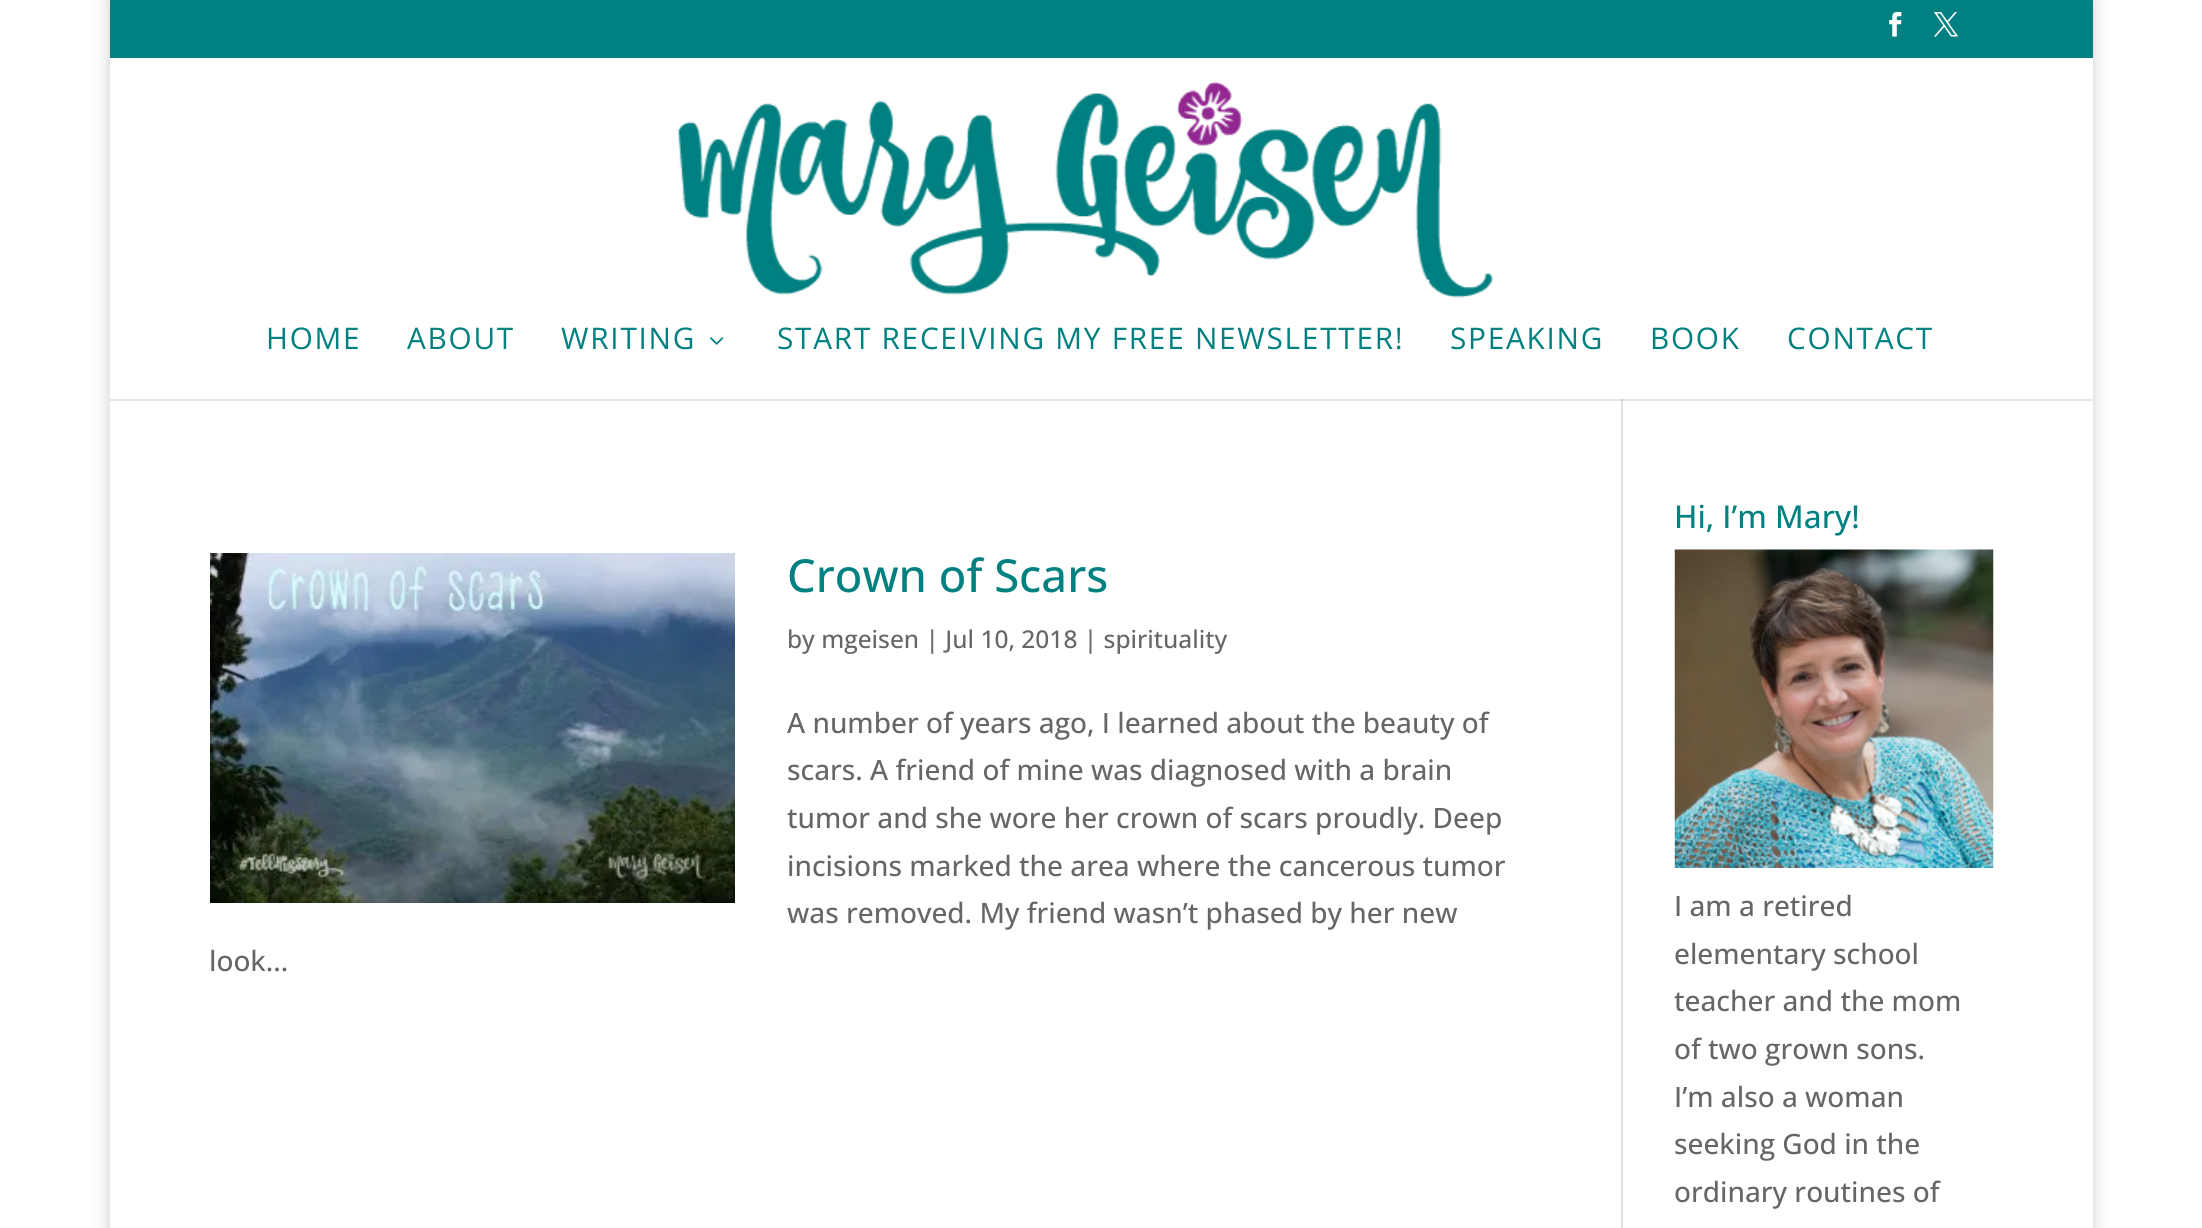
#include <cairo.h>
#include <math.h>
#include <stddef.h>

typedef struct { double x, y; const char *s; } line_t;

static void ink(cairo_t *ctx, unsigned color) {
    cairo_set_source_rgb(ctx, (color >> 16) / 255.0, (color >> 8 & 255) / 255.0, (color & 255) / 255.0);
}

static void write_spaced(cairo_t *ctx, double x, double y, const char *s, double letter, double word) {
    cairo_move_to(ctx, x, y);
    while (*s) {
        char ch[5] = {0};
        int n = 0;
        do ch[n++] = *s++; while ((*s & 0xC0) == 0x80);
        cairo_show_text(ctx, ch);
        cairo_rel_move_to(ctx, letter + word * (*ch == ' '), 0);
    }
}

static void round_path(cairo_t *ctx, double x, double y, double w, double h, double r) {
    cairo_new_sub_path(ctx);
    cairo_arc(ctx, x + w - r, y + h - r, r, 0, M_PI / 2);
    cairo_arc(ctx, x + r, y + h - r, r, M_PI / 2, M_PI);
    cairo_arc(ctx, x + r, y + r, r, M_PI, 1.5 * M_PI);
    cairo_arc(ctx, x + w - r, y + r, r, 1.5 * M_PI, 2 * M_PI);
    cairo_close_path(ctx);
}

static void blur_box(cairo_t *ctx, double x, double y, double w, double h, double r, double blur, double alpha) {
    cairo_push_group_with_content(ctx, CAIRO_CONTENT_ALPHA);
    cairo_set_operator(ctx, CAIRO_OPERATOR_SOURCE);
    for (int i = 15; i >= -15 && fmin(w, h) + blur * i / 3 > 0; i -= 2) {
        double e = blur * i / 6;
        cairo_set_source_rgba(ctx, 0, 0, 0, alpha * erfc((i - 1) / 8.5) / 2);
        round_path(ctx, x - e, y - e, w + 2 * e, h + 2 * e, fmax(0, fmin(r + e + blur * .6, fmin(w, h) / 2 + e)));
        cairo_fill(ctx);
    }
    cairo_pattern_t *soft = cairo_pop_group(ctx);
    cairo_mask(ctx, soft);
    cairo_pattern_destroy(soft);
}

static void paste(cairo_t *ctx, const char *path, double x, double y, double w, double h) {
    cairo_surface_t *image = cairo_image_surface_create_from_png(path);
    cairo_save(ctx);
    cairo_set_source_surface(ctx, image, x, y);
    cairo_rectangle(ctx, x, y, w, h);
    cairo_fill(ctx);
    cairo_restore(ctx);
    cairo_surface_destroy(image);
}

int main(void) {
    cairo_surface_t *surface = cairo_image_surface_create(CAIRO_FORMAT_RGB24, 2202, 1228);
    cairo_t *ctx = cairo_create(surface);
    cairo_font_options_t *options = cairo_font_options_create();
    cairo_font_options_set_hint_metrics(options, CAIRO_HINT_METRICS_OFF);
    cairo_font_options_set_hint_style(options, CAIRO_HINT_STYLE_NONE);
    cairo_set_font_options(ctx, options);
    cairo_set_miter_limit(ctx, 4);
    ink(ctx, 0xFFFFFF);
    cairo_paint(ctx);
    ink(ctx, 0x000000);
    blur_box(ctx, 110, 0, 1983, 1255, 0, 9, 0.2);
    ink(ctx, 0x008080);
    cairo_rectangle(ctx, 110, 0, 1983, 58);
    cairo_fill(ctx);
    paste(ctx, "media/1.png", 1889, 12, 13, 25);
    paste(ctx, "media/2.png", 1933, 12, 26, 25);
    ink(ctx, 0xFFFFFF);
    cairo_rectangle(ctx, 110, 58, 1983, 1170);
    cairo_fill(ctx);
    ink(ctx, 0xE2E2E2);
    cairo_rectangle(ctx, 1621, 399, 2, 829);
    cairo_fill(ctx);
    cairo_set_source_rgba(ctx, 0, 0, 0, 0.1);
    cairo_new_path(ctx);
    cairo_move_to(ctx, 110, 60);
    cairo_line_to(ctx, 110, 401);
    cairo_line_to(ctx, 2093, 401);
    cairo_line_to(ctx, 2093, 399);
    cairo_line_to(ctx, 110, 399);
    cairo_close_path(ctx);
    cairo_fill(ctx);
    paste(ctx, "media/3.png", 678, 81, 815, 217);
    cairo_select_font_face(ctx, "Open Sans", CAIRO_FONT_SLANT_NORMAL, CAIRO_FONT_WEIGHT_NORMAL);
    cairo_set_font_size(ctx, 29.75);
    ink(ctx, 0x008080);
    {
        static const line_t items[] = {
            {266, 349, "HOME"},
            {407, 349, "ABOUT"},
            {561, 349, "WRITING"},
        };
        for (size_t i = 0; i < sizeof items / sizeof *items; i++) {
            write_spaced(ctx, items[i].x, items[i].y, items[i].s, 1.75, 0);
        }
    }
    paste(ctx, "media/4.png", 710, 337, 14, 8);
    {
        static const line_t items[] = {
            {777, 349, "START RECEIVING MY FREE NEWSLETTER!"},
            {1450, 349, "SPEAKING"},
            {1650, 349, "BOOK"},
            {1787, 349, "CONTACT"},
        };
        for (size_t i = 0; i < sizeof items / sizeof *items; i++) {
            write_spaced(ctx, items[i].x, items[i].y, items[i].s, 1.75, 0);
        }
    }
    paste(ctx, "media/5.png", 210, 553, 525, 350);
    cairo_select_font_face(ctx, "Open Sans Medium", CAIRO_FONT_SLANT_NORMAL, CAIRO_FONT_WEIGHT_NORMAL);
    cairo_set_font_size(ctx, 45.5);
    cairo_move_to(ctx, 787, 592);
    cairo_show_text(ctx, "Crown of Scars");
    cairo_set_font_size(ctx, 24.5);
    ink(ctx, 0x666666);
    cairo_move_to(ctx, 787, 648);
    cairo_show_text(ctx, "by mgeisen | Jul 10, 2018 | spirituality");
    cairo_set_font_size(ctx, 28);
    {
        static const line_t items[] = {
            {787, 733, "A number of years ago, I learned about the beauty of"},
            {787, 780, "scars. A friend of mine was diagnosed with a brain"},
            {787, 828, "tumor and she wore her crown of scars proudly. Deep"},
            {787, 876, "incisions marked the area where the cancerous tumor"},
            {787, 923, "was removed. My friend wasn’t phased by her new"},
            {209, 971, "look..."},
        };
        for (size_t i = 0; i < sizeof items / sizeof *items; i++) {
            cairo_move_to(ctx, items[i].x, items[i].y);
            cairo_show_text(ctx, items[i].s);
        }
    }
    cairo_set_font_size(ctx, 31.5);
    ink(ctx, 0x008080);
    cairo_move_to(ctx, 1674, 528);
    cairo_show_text(ctx, "Hi, I’m Mary!");
    paste(ctx, "media/6.png", 1674, 549, 320, 319);
    cairo_set_font_size(ctx, 28);
    ink(ctx, 0x666666);
    {
        static const line_t items[] = {
            {1674, 916, "I am a retired"},
            {1674, 964, "elementary school"},
            {1674, 1011, "teacher and the mom"},
            {1674, 1059, "of two grown sons."},
            {1674, 1107, "I’m also a woman"},
            {1674, 1154, "seeking God in the"},
            {1674, 1202, "ordinary routines of"},
        };
        for (size_t i = 0; i < sizeof items / sizeof *items; i++) {
            cairo_move_to(ctx, items[i].x, items[i].y);
            cairo_show_text(ctx, items[i].s);
        }
    }
    cairo_surface_write_to_png(surface, "image.png");
    cairo_font_options_destroy(options);
    cairo_destroy(ctx);
    cairo_surface_destroy(surface);
    return 0;
}
